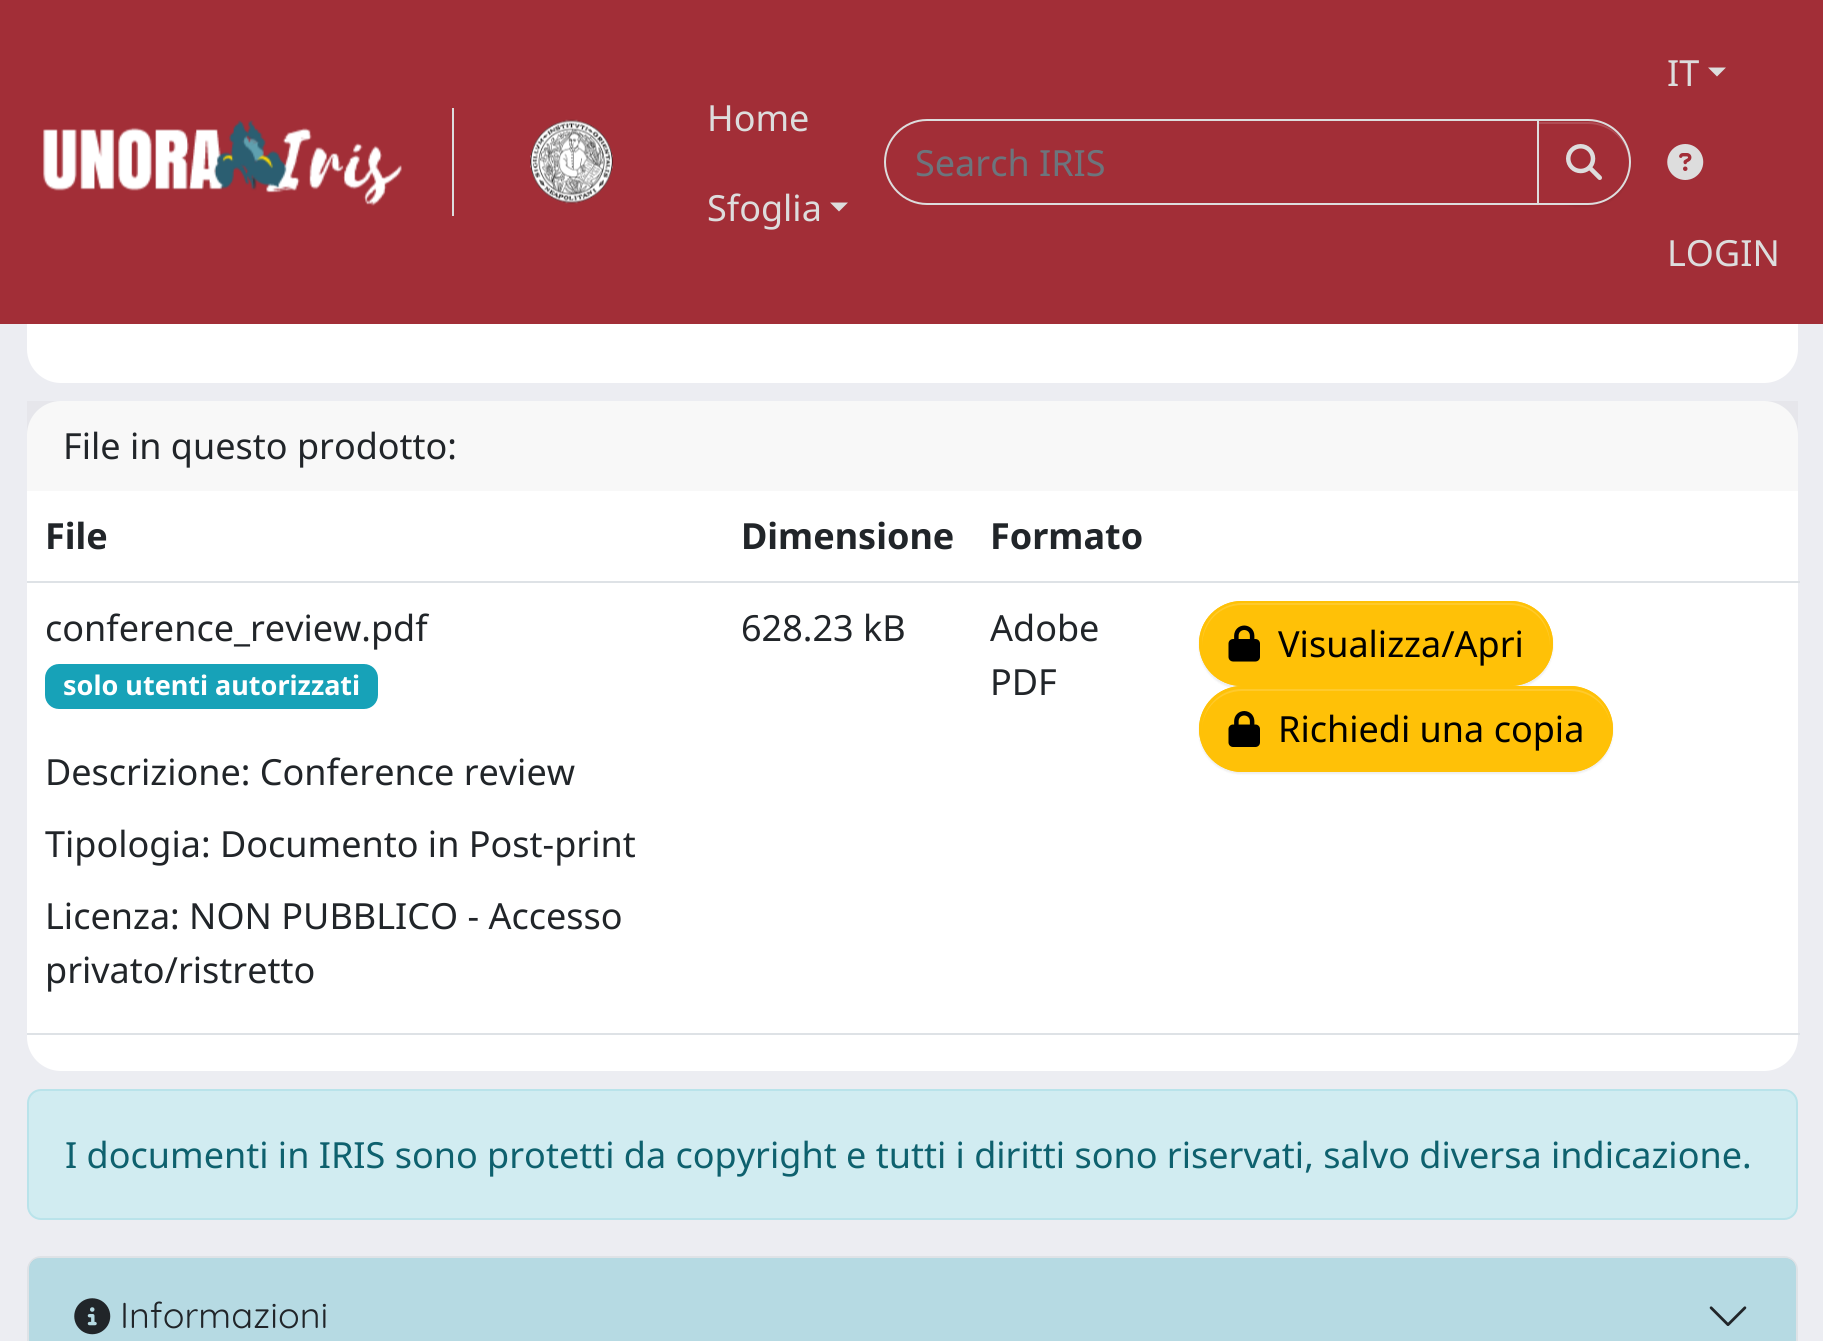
#include <cairo.h>
#include <math.h>
#include <stddef.h>

typedef struct { double x, y; const char *s; } line_t;

static void ink(cairo_t *ctx, unsigned color) {
    cairo_set_source_rgb(ctx, (color >> 16) / 255.0, (color >> 8 & 255) / 255.0, (color & 255) / 255.0);
}

static void round_path(cairo_t *ctx, double x, double y, double w, double h, double r) {
    cairo_new_sub_path(ctx);
    cairo_arc(ctx, x + w - r, y + h - r, r, 0, M_PI / 2);
    cairo_arc(ctx, x + r, y + h - r, r, M_PI / 2, M_PI);
    cairo_arc(ctx, x + r, y + r, r, M_PI, 1.5 * M_PI);
    cairo_arc(ctx, x + w - r, y + r, r, 1.5 * M_PI, 2 * M_PI);
    cairo_close_path(ctx);
}

static void blur_box(cairo_t *ctx, double x, double y, double w, double h, double r, double blur, double alpha) {
    cairo_push_group_with_content(ctx, CAIRO_CONTENT_ALPHA);
    cairo_set_operator(ctx, CAIRO_OPERATOR_SOURCE);
    for (int i = 15; i >= -15 && fmin(w, h) + blur * i / 3 > 0; i -= 2) {
        double e = blur * i / 6;
        cairo_set_source_rgba(ctx, 0, 0, 0, alpha * erfc((i - 1) / 8.5) / 2);
        round_path(ctx, x - e, y - e, w + 2 * e, h + 2 * e, fmax(0, fmin(r + e + blur * .6, fmin(w, h) / 2 + e)));
        cairo_fill(ctx);
    }
    cairo_pattern_t *soft = cairo_pop_group(ctx);
    cairo_mask(ctx, soft);
    cairo_pattern_destroy(soft);
}

static void paste(cairo_t *ctx, const char *path, double x, double y, double w, double h) {
    cairo_surface_t *image = cairo_image_surface_create_from_png(path);
    cairo_save(ctx);
    cairo_set_source_surface(ctx, image, x, y);
    cairo_rectangle(ctx, x, y, w, h);
    cairo_fill(ctx);
    cairo_restore(ctx);
    cairo_surface_destroy(image);
}

int main(void) {
    cairo_surface_t *surface = cairo_image_surface_create(CAIRO_FORMAT_RGB24, 1823, 1341);
    cairo_t *ctx = cairo_create(surface);
    cairo_font_options_t *options = cairo_font_options_create();
    cairo_font_options_set_hint_metrics(options, CAIRO_HINT_METRICS_OFF);
    cairo_font_options_set_hint_style(options, CAIRO_HINT_STYLE_NONE);
    cairo_set_font_options(ctx, options);
    cairo_set_miter_limit(ctx, 4);
    ink(ctx, 0xECEDF2);
    cairo_paint(ctx);
    ink(ctx, 0xFFFFFF);
    round_path(ctx, 27, -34, 1771, 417, 34);
    cairo_fill(ctx);
    ink(ctx, 0xA22E37);
    cairo_rectangle(ctx, 0, 0, 1823, 324);
    cairo_fill(ctx);
    ink(ctx, 0xDDDDDD);
    cairo_rectangle(ctx, 452, 108, 2, 108);
    cairo_fill(ctx);
    paste(ctx, "media/1.png", 43, 120, 359, 86);
    paste(ctx, "media/2.png", 530, 119, 83, 85);
    cairo_select_font_face(ctx, "Noto Sans", CAIRO_FONT_SLANT_NORMAL, CAIRO_FONT_WEIGHT_NORMAL);
    cairo_set_font_size(ctx, 36);
    cairo_move_to(ctx, 707, 131);
    cairo_show_text(ctx, "Home");
    cairo_move_to(ctx, 707, 221);
    cairo_show_text(ctx, "Sfoglia");
    cairo_new_path(ctx);
    cairo_move_to(ctx, 830, 202.5);
    cairo_line_to(ctx, 848, 202.5);
    cairo_line_to(ctx, 839, 211.5);
    cairo_close_path(ctx);
    cairo_fill(ctx);
    cairo_new_path(ctx);
    cairo_move_to(ctx, 927, 120);
    cairo_line_to(ctx, 1538, 120);
    cairo_line_to(ctx, 1538, 204);
    cairo_line_to(ctx, 927, 204);
    cairo_curve_to(ctx, 904, 204, 885, 185, 885, 162);
    cairo_curve_to(ctx, 885, 139, 904, 120, 927, 120);
    cairo_close_path(ctx);
    cairo_stroke(ctx);
    ink(ctx, 0x6C757D);
    cairo_move_to(ctx, 915, 176);
    cairo_show_text(ctx, "Search IRIS");
    ink(ctx, 0x000000);
    blur_box(ctx, 1537, 122, 94, 85, 42.5, 1, 0.07);
    ink(ctx, 0xA22E37);
    cairo_new_path(ctx);
    cairo_move_to(ctx, 1537, 119);
    cairo_line_to(ctx, 1588, 119);
    cairo_curve_to(ctx, 1611.5, 119, 1631, 138.5, 1631, 162);
    cairo_curve_to(ctx, 1631, 185.5, 1611.5, 205, 1588, 205);
    cairo_line_to(ctx, 1537, 205);
    cairo_close_path(ctx);
    cairo_fill(ctx);
    ink(ctx, 0xB04D55);
    cairo_new_path(ctx);
    cairo_move_to(ctx, 1539, 124);
    cairo_line_to(ctx, 1588, 124);
    cairo_curve_to(ctx, 1611, 124, 1629, 142, 1629, 163);
    cairo_line_to(ctx, 1629, 162);
    cairo_curve_to(ctx, 1629, 140, 1611, 122, 1588, 122);
    cairo_line_to(ctx, 1539, 122);
    cairo_close_path(ctx);
    cairo_fill(ctx);
    cairo_new_path(ctx);
    cairo_move_to(ctx, 1538, 120);
    cairo_line_to(ctx, 1588, 120);
    cairo_curve_to(ctx, 1611, 120, 1630, 139, 1630, 162);
    cairo_curve_to(ctx, 1630, 185, 1611, 204, 1588, 204);
    cairo_line_to(ctx, 1538, 204);
    cairo_close_path(ctx);
    ink(ctx, 0xDDDDDD);
    cairo_stroke(ctx);
    paste(ctx, "media/3.png", 1566, 144, 36, 36);
    cairo_move_to(ctx, 1667, 86);
    cairo_show_text(ctx, "IT");
    cairo_new_path(ctx);
    cairo_move_to(ctx, 1708, 67.5);
    cairo_line_to(ctx, 1726, 67.5);
    cairo_line_to(ctx, 1717, 76.5);
    cairo_close_path(ctx);
    cairo_fill(ctx);
    paste(ctx, "media/4.png", 1667, 144, 37, 36);
    cairo_move_to(ctx, 1667, 266);
    cairo_show_text(ctx, "LOGIN");
    ink(ctx, 0xFFFFFF);
    round_path(ctx, 27, 401, 1771, 670, 34);
    cairo_fill(ctx);
    cairo_set_source_rgba(ctx, 0, 0, 0, 0.03);
    cairo_rectangle(ctx, 27, 401, 1771, 90);
    cairo_fill(ctx);
    ink(ctx, 0x212529);
    cairo_move_to(ctx, 63, 459);
    cairo_show_text(ctx, "File in questo prodotto:");
    cairo_select_font_face(ctx, "Noto Sans", CAIRO_FONT_SLANT_NORMAL, CAIRO_FONT_WEIGHT_BOLD);
    {
        static const line_t items[] = {
            {45, 549, "File"},
            {741, 549, "Dimensione"},
            {990, 549, "Formato"},
        };
        for (size_t i = 0; i < sizeof items / sizeof *items; i++) {
            cairo_move_to(ctx, items[i].x, items[i].y);
            cairo_show_text(ctx, items[i].s);
        }
    }
    ink(ctx, 0xDEE2E6);
    cairo_rectangle(ctx, 27, 581, 1773, 2);
    cairo_fill(ctx);
    cairo_select_font_face(ctx, "Noto Sans", CAIRO_FONT_SLANT_NORMAL, CAIRO_FONT_WEIGHT_NORMAL);
    ink(ctx, 0x212529);
    cairo_move_to(ctx, 45, 641);
    cairo_show_text(ctx, "conference_review.pdf");
    ink(ctx, 0x17A2B8);
    round_path(ctx, 45, 664, 333, 45, 14);
    cairo_fill(ctx);
    cairo_select_font_face(ctx, "Noto Sans", CAIRO_FONT_SLANT_NORMAL, CAIRO_FONT_WEIGHT_BOLD);
    cairo_set_font_size(ctx, 27);
    ink(ctx, 0xFFFFFF);
    cairo_move_to(ctx, 63, 695);
    cairo_show_text(ctx, "solo utenti autorizzati");
    cairo_select_font_face(ctx, "Noto Sans", CAIRO_FONT_SLANT_NORMAL, CAIRO_FONT_WEIGHT_NORMAL);
    cairo_set_font_size(ctx, 36);
    ink(ctx, 0x212529);
    {
        static const line_t items[] = {
            {45, 785, "Descrizione: Conference review"},
            {45, 857, "Tipologia: Documento in Post-print"},
            {45, 929, "Licenza: NON PUBBLICO - Accesso"},
            {45, 983, "privato/ristretto"},
            {741, 641, "628.23 kB"},
            {990, 641, "Adobe"},
            {990, 695, "PDF"},
        };
        for (size_t i = 0; i < sizeof items / sizeof *items; i++) {
            cairo_move_to(ctx, items[i].x, items[i].y);
            cairo_show_text(ctx, items[i].s);
        }
    }
    ink(ctx, 0xDEE2E6);
    cairo_rectangle(ctx, 27, 1033, 1773, 2);
    cairo_fill(ctx);
    ink(ctx, 0x000000);
    blur_box(ctx, 1199, 603, 354, 86, 43, 1, 0.07);
    ink(ctx, 0xFFC107);
    round_path(ctx, 1199, 601, 354, 85, 42.5);
    cairo_fill(ctx);
    ink(ctx, 0xFFCA2C);
    cairo_new_path(ctx);
    cairo_move_to(ctx, 1242, 605);
    cairo_line_to(ctx, 1510, 605);
    cairo_curve_to(ctx, 1532, 605, 1549, 622, 1550, 645);
    cairo_line_to(ctx, 1550, 644);
    cairo_curve_to(ctx, 1550, 621, 1532, 603, 1510, 603);
    cairo_line_to(ctx, 1242, 603);
    cairo_curve_to(ctx, 1220, 603, 1202, 621, 1202, 644);
    cairo_line_to(ctx, 1202, 645);
    cairo_curve_to(ctx, 1203, 622, 1220, 605, 1242, 605);
    cairo_close_path(ctx);
    cairo_fill(ctx);
    round_path(ctx, 1200, 602, 352, 83, 41.5);
    ink(ctx, 0xFFC107);
    cairo_stroke(ctx);
    paste(ctx, "media/5.png", 1228, 625, 32, 37);
    ink(ctx, 0x000000);
    cairo_move_to(ctx, 1278, 657);
    cairo_show_text(ctx, "Visualizza/Apri");
    ink(ctx, 0x000000);
    blur_box(ctx, 1199, 689, 414, 85, 42.5, 1, 0.07);
    ink(ctx, 0xFFC107);
    round_path(ctx, 1199, 686, 414, 86, 43);
    cairo_fill(ctx);
    ink(ctx, 0xFFCA2C);
    cairo_new_path(ctx);
    cairo_move_to(ctx, 1242, 691);
    cairo_line_to(ctx, 1570, 691);
    cairo_curve_to(ctx, 1593, 691, 1611, 709, 1611, 730);
    cairo_curve_to(ctx, 1611, 707, 1593, 689, 1570, 689);
    cairo_line_to(ctx, 1242, 689);
    cairo_curve_to(ctx, 1220, 689, 1202, 707, 1202, 730);
    cairo_curve_to(ctx, 1202, 709, 1220, 691, 1242, 691);
    cairo_close_path(ctx);
    cairo_fill(ctx);
    round_path(ctx, 1200, 687, 412, 84, 42);
    ink(ctx, 0xFFC107);
    cairo_stroke(ctx);
    paste(ctx, "media/6.png", 1228, 711, 32, 36);
    ink(ctx, 0x000000);
    cairo_move_to(ctx, 1278, 742);
    cairo_show_text(ctx, "Richiedi una copia");
    ink(ctx, 0xD1ECF1);
    round_path(ctx, 28, 1090, 1769, 129, 13);
    cairo_fill_preserve(ctx);
    ink(ctx, 0xB9E3EA);
    cairo_stroke(ctx);
    ink(ctx, 0x0E616E);
    cairo_move_to(ctx, 65, 1168);
    cairo_show_text(ctx, "I documenti in IRIS sono protetti da copyright e tutti i diritti sono riservati, salvo diversa indicazione.");
    round_path(ctx, 28, 1257, 1769, 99, 13);
    ink(ctx, 0xDEE2E6);
    cairo_stroke(ctx);
    cairo_set_source_rgba(ctx, 0.09, 0.635, 0.722, 0.25);
    round_path(ctx, 29, 1258, 1767, 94, 11);
    cairo_fill(ctx);
    paste(ctx, "media/7.png", 74, 1298, 37, 37);
    cairo_select_font_face(ctx, "Quicksand", CAIRO_FONT_SLANT_NORMAL, CAIRO_FONT_WEIGHT_NORMAL);
    ink(ctx, 0x212529);
    cairo_move_to(ctx, 120, 1328);
    cairo_show_text(ctx, "Informazioni");
    paste(ctx, "media/8.png", 1709, 1306, 38, 20);
    cairo_surface_write_to_png(surface, "image.png");
    cairo_font_options_destroy(options);
    cairo_destroy(ctx);
    cairo_surface_destroy(surface);
    return 0;
}
